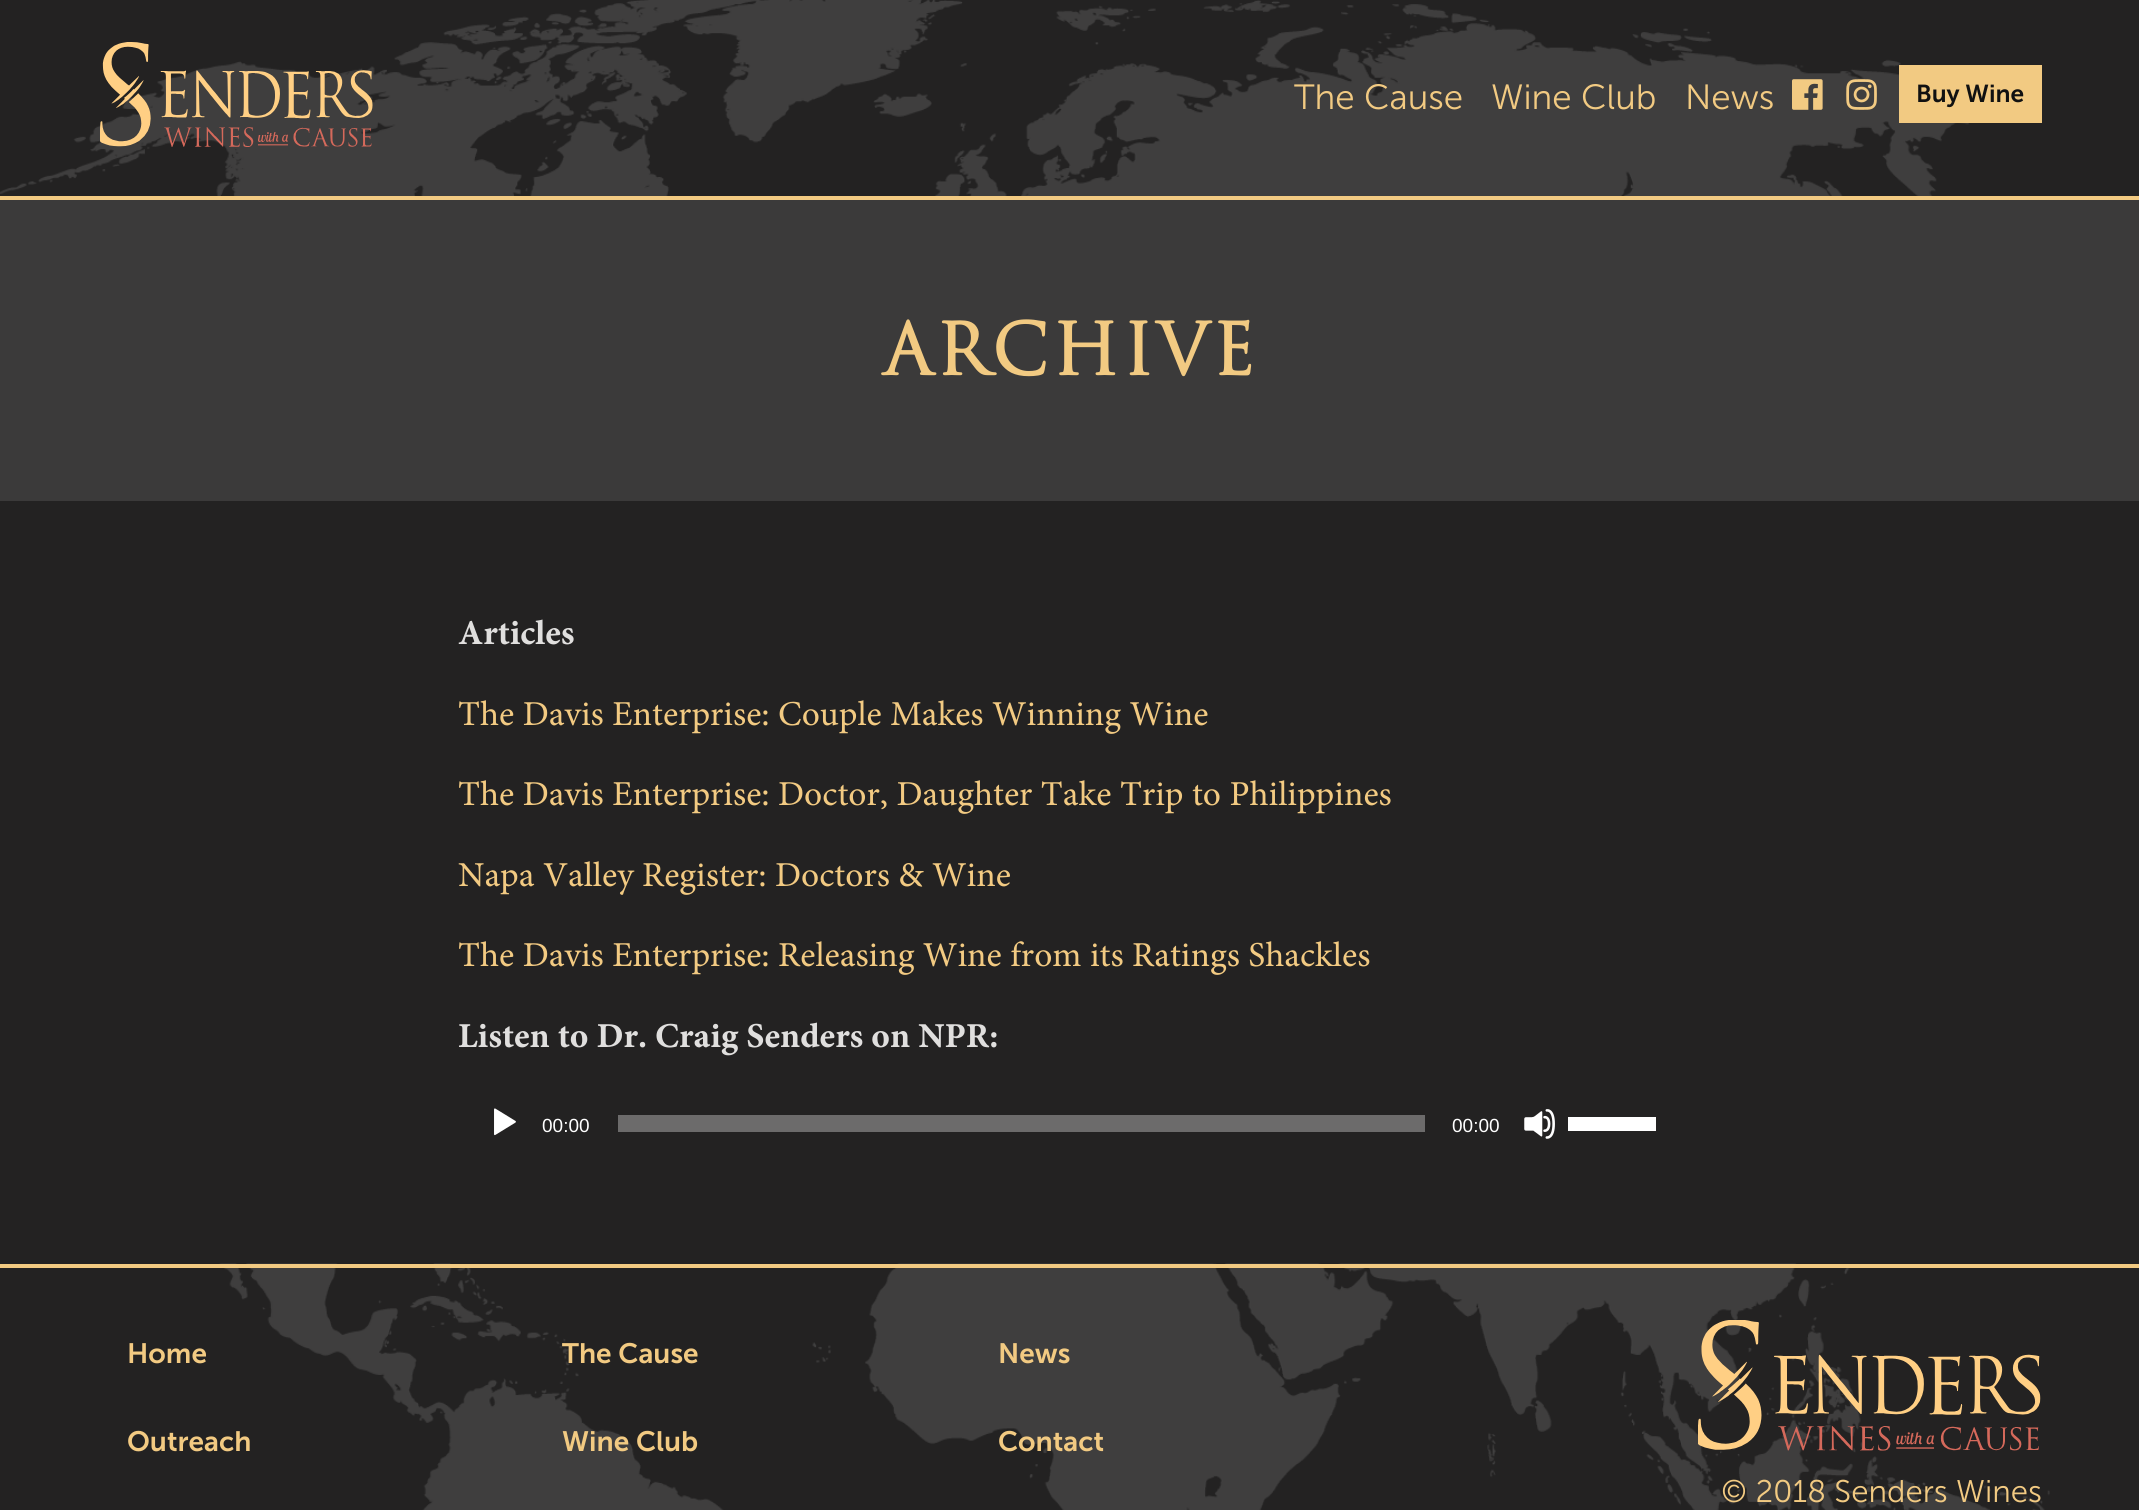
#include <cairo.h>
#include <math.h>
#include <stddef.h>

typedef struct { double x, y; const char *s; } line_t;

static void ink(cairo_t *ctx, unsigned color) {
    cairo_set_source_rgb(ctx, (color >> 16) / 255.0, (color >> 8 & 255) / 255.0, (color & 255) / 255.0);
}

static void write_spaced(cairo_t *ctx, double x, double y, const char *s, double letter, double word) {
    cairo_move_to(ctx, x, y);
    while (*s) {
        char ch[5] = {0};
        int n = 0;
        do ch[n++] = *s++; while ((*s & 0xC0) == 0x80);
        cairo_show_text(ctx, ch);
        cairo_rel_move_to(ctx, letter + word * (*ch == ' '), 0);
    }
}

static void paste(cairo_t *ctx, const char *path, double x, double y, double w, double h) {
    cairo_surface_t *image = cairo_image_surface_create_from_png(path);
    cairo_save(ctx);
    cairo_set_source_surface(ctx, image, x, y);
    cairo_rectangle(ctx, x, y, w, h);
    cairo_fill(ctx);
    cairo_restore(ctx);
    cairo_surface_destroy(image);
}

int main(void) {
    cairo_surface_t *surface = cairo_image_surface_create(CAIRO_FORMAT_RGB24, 2139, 1510);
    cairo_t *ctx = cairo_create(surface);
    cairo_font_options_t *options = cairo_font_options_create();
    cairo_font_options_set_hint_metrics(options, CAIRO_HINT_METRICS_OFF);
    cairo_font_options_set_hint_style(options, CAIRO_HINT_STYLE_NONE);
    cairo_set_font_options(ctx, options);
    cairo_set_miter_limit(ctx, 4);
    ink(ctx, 0x232222);
    cairo_paint(ctx);
    paste(ctx, "media/1.png", 0, 0, 1969, 196);
    ink(ctx, 0xF2CA82);
    cairo_rectangle(ctx, 0, 196, 2139, 4);
    cairo_fill(ctx);
    paste(ctx, "media/2.png", 100, 42, 273, 105);
    cairo_select_font_face(ctx, "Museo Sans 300 Light", CAIRO_FONT_SLANT_NORMAL, CAIRO_FONT_WEIGHT_NORMAL);
    cairo_set_font_size(ctx, 35);
    {
        static const line_t items[] = {
            {1294, 109, "The Cause"},
            {1491, 109, "Wine Club"},
            {1685, 109, "News"},
        };
        for (size_t i = 0; i < sizeof items / sizeof *items; i++) {
            cairo_move_to(ctx, items[i].x, items[i].y);
            cairo_show_text(ctx, items[i].s);
        }
    }
    paste(ctx, "media/3.png", 1792, 79, 31, 31);
    paste(ctx, "media/4.png", 1846, 79, 31, 31);
    cairo_rectangle(ctx, 1901, 67, 139, 54);
    cairo_fill_preserve(ctx);
    cairo_set_line_width(ctx, 4);
    cairo_stroke(ctx);
    cairo_select_font_face(ctx, "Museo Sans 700 SemiBold", CAIRO_FONT_SLANT_NORMAL, CAIRO_FONT_WEIGHT_NORMAL);
    cairo_set_font_size(ctx, 24.5);
    ink(ctx, 0x111111);
    cairo_move_to(ctx, 1916, 102);
    cairo_show_text(ctx, "Buy Wine");
    ink(ctx, 0x3B3A3A);
    cairo_rectangle(ctx, 0, 200, 2139, 301);
    cairo_fill(ctx);
    cairo_select_font_face(ctx, "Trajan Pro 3", CAIRO_FONT_SLANT_NORMAL, CAIRO_FONT_WEIGHT_BOLD);
    cairo_set_font_size(ctx, 70);
    ink(ctx, 0xF2CA82);
    write_spaced(ctx, 883, 375, "ARCHIVE", 3.5, 0);
    cairo_select_font_face(ctx, "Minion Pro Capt", CAIRO_FONT_SLANT_NORMAL, CAIRO_FONT_WEIGHT_BOLD);
    cairo_set_font_size(ctx, 35);
    ink(ctx, 0xE0DFDE);
    cairo_move_to(ctx, 458, 644);
    cairo_show_text(ctx, "Articles");
    cairo_select_font_face(ctx, "Minion Pro Capt", CAIRO_FONT_SLANT_NORMAL, CAIRO_FONT_WEIGHT_NORMAL);
    ink(ctx, 0xF2CA82);
    {
        static const line_t items[] = {
            {458, 725, "The Davis Enterprise: Couple Makes Winning Wine"},
            {458, 805, "The Davis Enterprise: Doctor, Daughter Take Trip to Philippines"},
            {458, 886, "Napa Valley Register: Doctors & Wine"},
            {458, 966, "The Davis Enterprise: Releasing Wine from its Ratings Shackles"},
        };
        for (size_t i = 0; i < sizeof items / sizeof *items; i++) {
            cairo_move_to(ctx, items[i].x, items[i].y);
            cairo_show_text(ctx, items[i].s);
        }
    }
    cairo_select_font_face(ctx, "Minion Pro Capt", CAIRO_FONT_SLANT_NORMAL, CAIRO_FONT_WEIGHT_BOLD);
    ink(ctx, 0xE0DFDE);
    cairo_move_to(ctx, 458, 1047);
    cairo_show_text(ctx, "Listen to Dr. Craig Senders on NPR:");
    paste(ctx, "media/5.png", 494, 1108, 22, 28);
    cairo_select_font_face(ctx, "Liberation Sans", CAIRO_FONT_SLANT_NORMAL, CAIRO_FONT_WEIGHT_NORMAL);
    cairo_set_font_size(ctx, 19);
    ink(ctx, 0xFFFFFF);
    cairo_move_to(ctx, 542, 1132);
    cairo_show_text(ctx, "00:00");
    ink(ctx, 0x6C6B6B);
    cairo_rectangle(ctx, 618, 1115, 807, 17);
    cairo_fill(ctx);
    ink(ctx, 0xFFFFFF);
    cairo_move_to(ctx, 1452, 1132);
    cairo_show_text(ctx, "00:00");
    paste(ctx, "media/6.png", 1524, 1109, 31, 30);
    cairo_rectangle(ctx, 1568, 1117, 88, 14);
    cairo_fill(ctx);
    paste(ctx, "media/7.png", 219, 1263, 1831, 247);
    ink(ctx, 0xF2CA82);
    cairo_rectangle(ctx, 0, 1264, 2139, 4);
    cairo_fill(ctx);
    cairo_select_font_face(ctx, "Museo Sans 700 SemiBold", CAIRO_FONT_SLANT_NORMAL, CAIRO_FONT_WEIGHT_NORMAL);
    cairo_set_font_size(ctx, 28);
    {
        static const line_t items[] = {
            {127, 1363, "Home"},
            {562, 1363, "The Cause"},
            {998, 1363, "News"},
            {127, 1451, "Outreach"},
            {562, 1451, "Wine Club"},
            {998, 1451, "Contact"},
        };
        for (size_t i = 0; i < sizeof items / sizeof *items; i++) {
            cairo_move_to(ctx, items[i].x, items[i].y);
            cairo_show_text(ctx, items[i].s);
        }
    }
    paste(ctx, "media/8.png", 1698, 1320, 343, 131);
    cairo_select_font_face(ctx, "Museo Sans 300 Light", CAIRO_FONT_SLANT_NORMAL, CAIRO_FONT_WEIGHT_NORMAL);
    cairo_set_font_size(ctx, 31.25);
    cairo_move_to(ctx, 1721, 1502);
    cairo_show_text(ctx, "© 2018 Senders Wines");
    cairo_surface_write_to_png(surface, "image.png");
    cairo_font_options_destroy(options);
    cairo_destroy(ctx);
    cairo_surface_destroy(surface);
    return 0;
}
